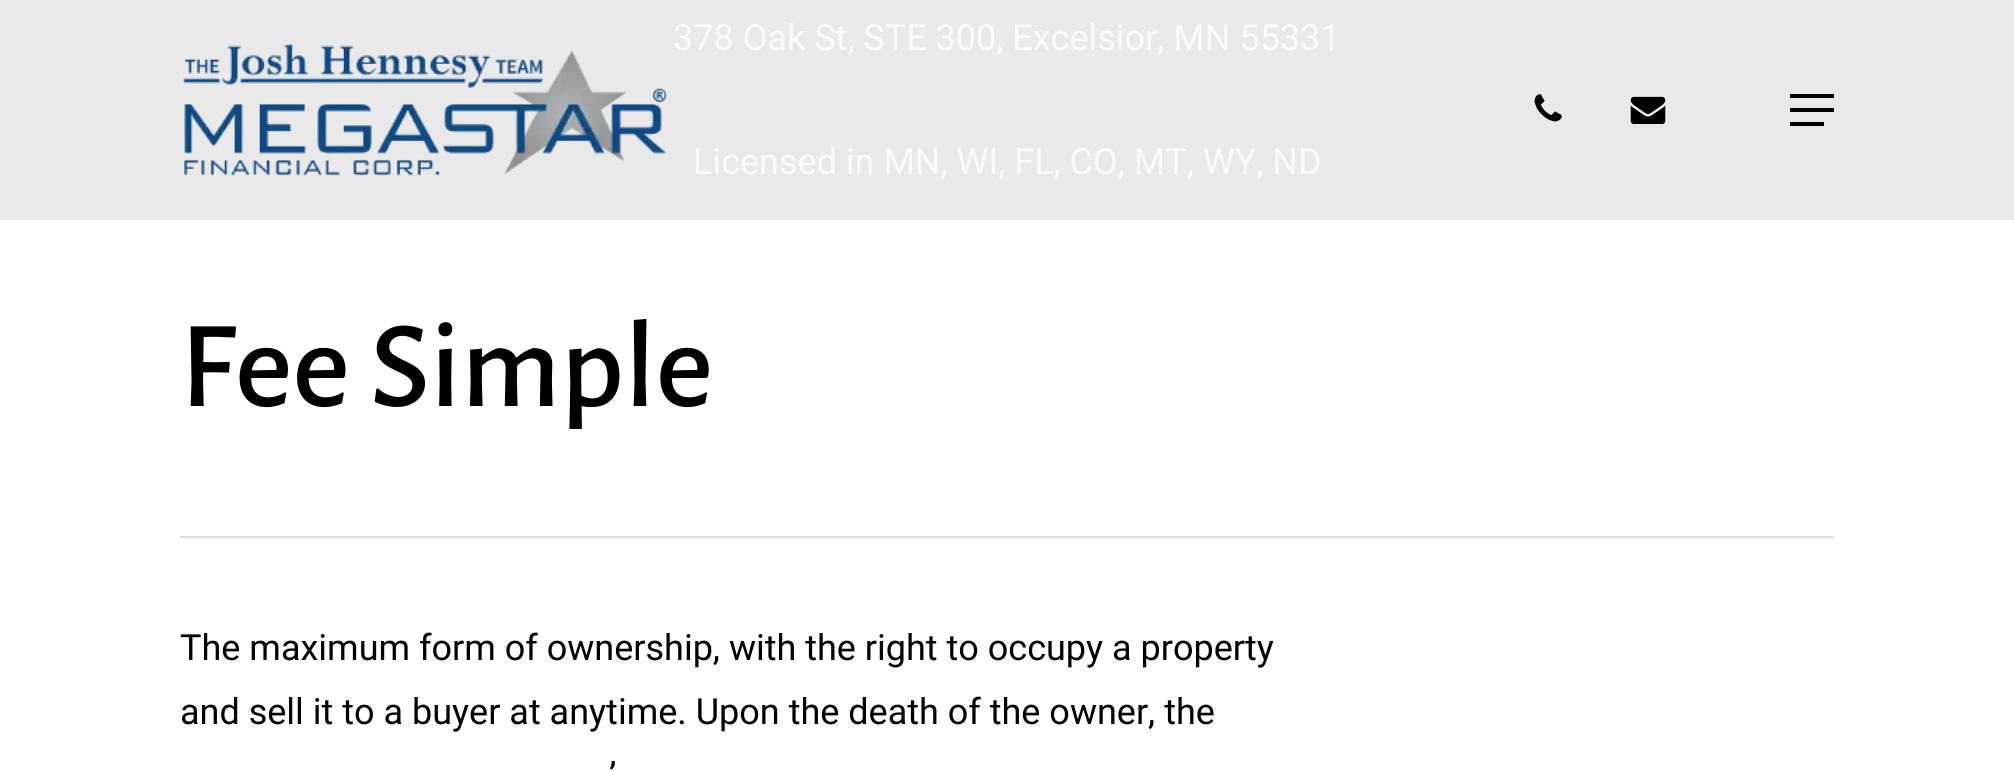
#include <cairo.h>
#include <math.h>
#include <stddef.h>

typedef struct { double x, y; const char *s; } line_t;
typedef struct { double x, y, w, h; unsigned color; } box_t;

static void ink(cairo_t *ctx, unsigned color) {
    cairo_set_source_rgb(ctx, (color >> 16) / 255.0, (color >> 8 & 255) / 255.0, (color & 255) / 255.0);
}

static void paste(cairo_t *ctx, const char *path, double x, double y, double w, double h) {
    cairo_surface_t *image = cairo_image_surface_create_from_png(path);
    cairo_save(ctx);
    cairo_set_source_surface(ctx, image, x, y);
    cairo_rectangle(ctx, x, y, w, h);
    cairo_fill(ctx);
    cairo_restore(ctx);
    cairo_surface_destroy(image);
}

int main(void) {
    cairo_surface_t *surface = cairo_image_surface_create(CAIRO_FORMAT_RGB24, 2014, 771);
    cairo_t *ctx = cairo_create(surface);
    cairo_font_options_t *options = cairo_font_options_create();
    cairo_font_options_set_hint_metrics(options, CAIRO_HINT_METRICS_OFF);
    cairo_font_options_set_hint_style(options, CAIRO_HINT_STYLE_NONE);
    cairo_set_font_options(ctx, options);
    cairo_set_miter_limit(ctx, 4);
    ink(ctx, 0xE9E9E9);
    cairo_paint(ctx);
    cairo_select_font_face(ctx, "Roboto", CAIRO_FONT_SLANT_NORMAL, CAIRO_FONT_WEIGHT_NORMAL);
    cairo_set_font_size(ctx, 36);
    ink(ctx, 0xFAFAFA);
    cairo_move_to(ctx, 673, 50);
    cairo_show_text(ctx, "378 Oak St, STE 300, Excelsior, MN 55331");
    cairo_move_to(ctx, 693, 174);
    cairo_show_text(ctx, "Licensed in MN, WI, FL, CO, MT, WY, ND");
    ink(ctx, 0xFFFFFF);
    cairo_rectangle(ctx, 0, 220, 2014, 551);
    cairo_fill(ctx);
    ink(ctx, 0xDDDDDD);
    cairo_rectangle(ctx, 180, 536, 1654, 2);
    cairo_fill(ctx);
    cairo_select_font_face(ctx, "Alegreya Sans Medium", CAIRO_FONT_SLANT_NORMAL, CAIRO_FONT_WEIGHT_NORMAL);
    cairo_set_font_size(ctx, 124);
    ink(ctx, 0x000000);
    cairo_move_to(ctx, 180, 406);
    cairo_show_text(ctx, "Fee Simple");
    cairo_select_font_face(ctx, "Roboto", CAIRO_FONT_SLANT_NORMAL, CAIRO_FONT_WEIGHT_NORMAL);
    cairo_set_font_size(ctx, 36);
    {
        static const line_t items[] = {
            {180, 660, "The maximum form of ownership, with the right to occupy a property"},
            {180, 724, "and sell it to a buyer at anytime. Upon the death of the owner, the"},
            {609, 788, "’"},
        };
        for (size_t i = 0; i < sizeof items / sizeof *items; i++) {
            cairo_move_to(ctx, items[i].x, items[i].y);
            cairo_show_text(ctx, items[i].s);
        }
    }
    paste(ctx, "media/1.png", 182, 44, 486, 132);
    paste(ctx, "media/2.png", 1534, 94, 28, 28);
    paste(ctx, "media/3.png", 1630, 96, 36, 28);
    {
        static const box_t items[] = {
            {1790, 94, 44, 4, 0x000000},
            {1790, 122, 34, 4, 0x000000},
            {1790, 108, 44, 4, 0x000000},
        };
        for (size_t i = 0; i < sizeof items / sizeof *items; i++) {
            ink(ctx, items[i].color);
            cairo_rectangle(ctx, items[i].x, items[i].y, items[i].w, items[i].h);
            cairo_fill(ctx);
        }
    }
    cairo_surface_write_to_png(surface, "image.png");
    cairo_font_options_destroy(options);
    cairo_destroy(ctx);
    cairo_surface_destroy(surface);
    return 0;
}
